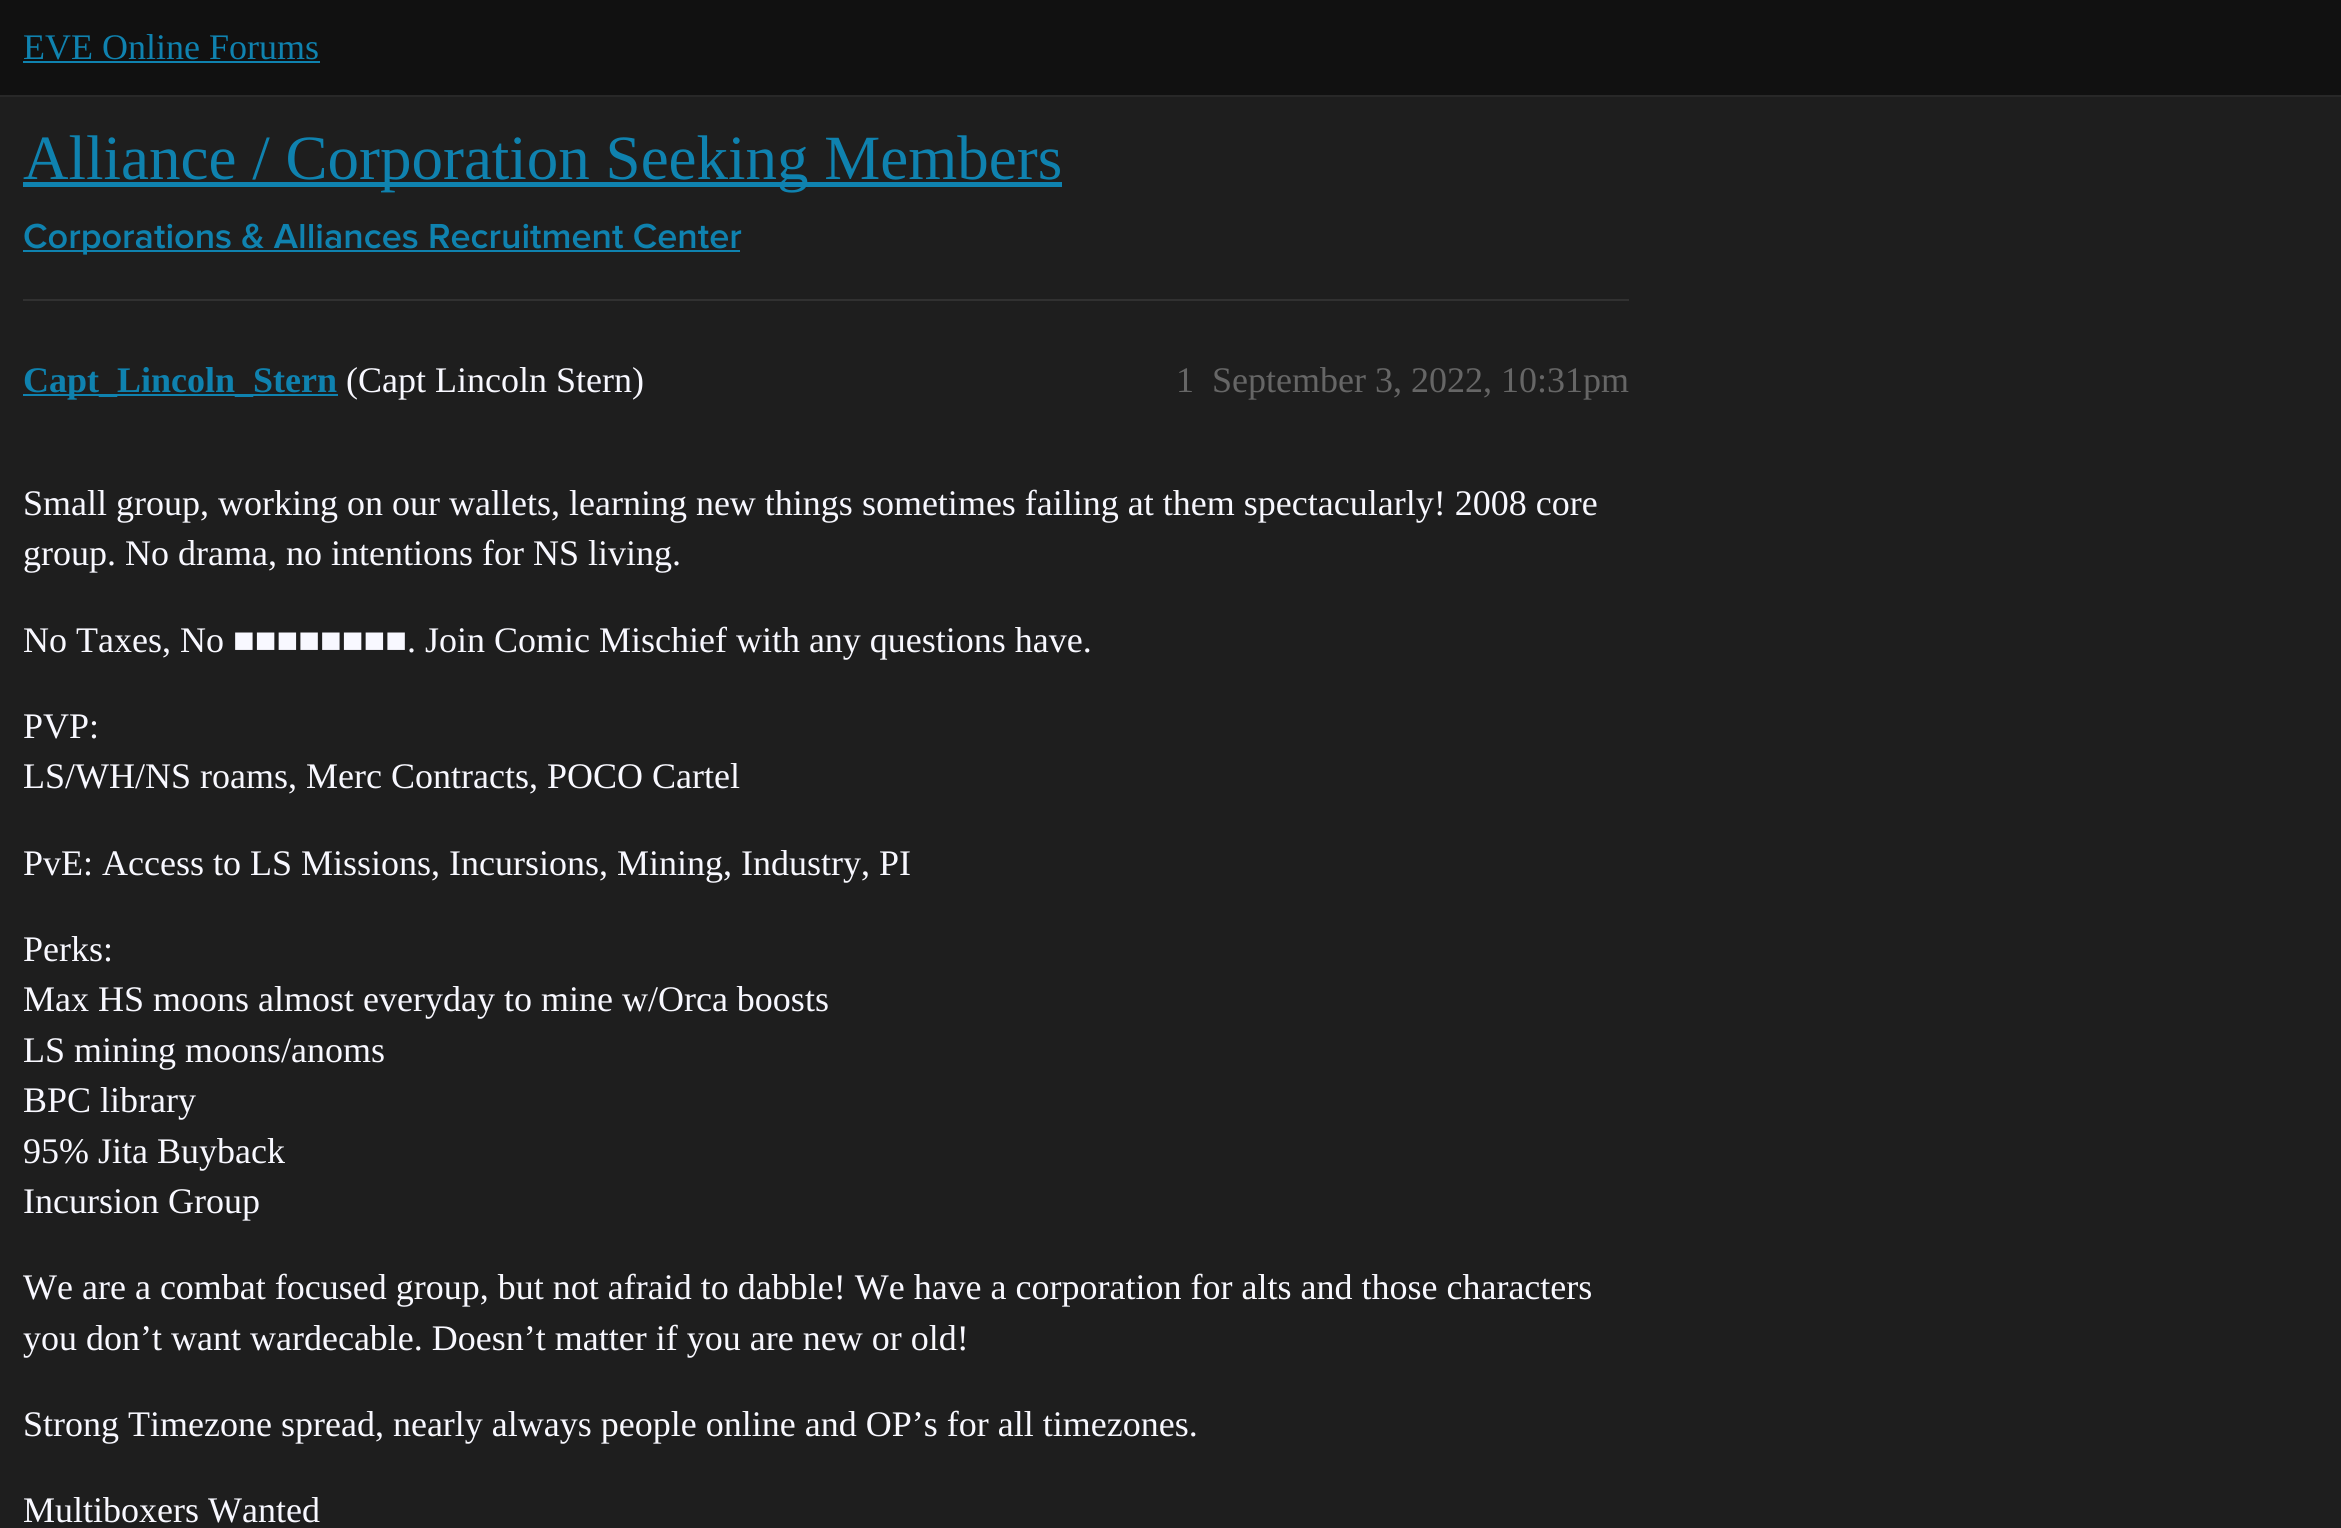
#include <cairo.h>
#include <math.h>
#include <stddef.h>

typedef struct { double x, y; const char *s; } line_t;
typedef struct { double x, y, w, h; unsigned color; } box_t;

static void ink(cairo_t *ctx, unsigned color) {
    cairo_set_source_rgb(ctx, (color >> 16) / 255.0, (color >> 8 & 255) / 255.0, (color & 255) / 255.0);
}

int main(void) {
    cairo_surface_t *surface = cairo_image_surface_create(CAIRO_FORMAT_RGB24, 2341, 1528);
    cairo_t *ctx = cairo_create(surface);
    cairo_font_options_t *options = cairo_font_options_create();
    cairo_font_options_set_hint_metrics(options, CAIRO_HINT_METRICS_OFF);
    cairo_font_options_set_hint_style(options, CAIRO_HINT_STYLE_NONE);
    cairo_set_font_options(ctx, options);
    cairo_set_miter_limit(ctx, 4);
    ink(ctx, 0x111111);
    cairo_paint(ctx);
    ink(ctx, 0x282828);
    cairo_rectangle(ctx, 0, 95, 2341, 2);
    cairo_fill(ctx);
    cairo_select_font_face(ctx, "Liberation Serif", CAIRO_FONT_SLANT_NORMAL, CAIRO_FONT_WEIGHT_NORMAL);
    cairo_set_font_size(ctx, 36);
    ink(ctx, 0x0F82AF);
    cairo_move_to(ctx, 23, 59);
    cairo_show_text(ctx, "EVE Online Forums");
    {
        static const box_t items[] = {
            {23, 61, 297, 2, 0x0F82AF},
            {0, 97, 2341, 1431, 0x1E1E1E},
            {23, 182, 1039, 5, 0x0F82AF},
        };
        for (size_t i = 0; i < sizeof items / sizeof *items; i++) {
            ink(ctx, items[i].color);
            cairo_rectangle(ctx, items[i].x, items[i].y, items[i].w, items[i].h);
            cairo_fill(ctx);
        }
    }
    cairo_set_font_size(ctx, 63);
    cairo_move_to(ctx, 23, 179);
    cairo_show_text(ctx, "Alliance / Corporation Seeking Members");
    cairo_rectangle(ctx, 23, 250, 717, 2);
    cairo_fill(ctx);
    cairo_select_font_face(ctx, "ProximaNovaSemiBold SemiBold", CAIRO_FONT_SLANT_NORMAL, CAIRO_FONT_WEIGHT_NORMAL);
    cairo_set_font_size(ctx, 36);
    cairo_move_to(ctx, 23, 248);
    cairo_show_text(ctx, "Corporations & Alliances Recruitment Center");
    ink(ctx, 0x313131);
    cairo_rectangle(ctx, 23, 299, 1606, 2);
    cairo_fill(ctx);
    ink(ctx, 0x0F82AF);
    cairo_rectangle(ctx, 23, 394, 315, 2);
    cairo_fill(ctx);
    cairo_select_font_face(ctx, "Liberation Serif", CAIRO_FONT_SLANT_NORMAL, CAIRO_FONT_WEIGHT_BOLD);
    cairo_move_to(ctx, 23, 392);
    cairo_show_text(ctx, "Capt_Lincoln_Stern");
    cairo_select_font_face(ctx, "Liberation Serif", CAIRO_FONT_SLANT_NORMAL, CAIRO_FONT_WEIGHT_NORMAL);
    ink(ctx, 0xF8F8FF);
    cairo_move_to(ctx, 346, 392);
    cairo_show_text(ctx, "(Capt Lincoln Stern)");
    ink(ctx, 0x666666);
    cairo_move_to(ctx, 1176, 392);
    cairo_show_text(ctx, "1");
    cairo_move_to(ctx, 1212, 392);
    cairo_show_text(ctx, "September 3, 2022, 10:31pm");
    ink(ctx, 0xF8F8FF);
    {
        static const line_t items[] = {
            {23, 515, "Small group, working on our wallets, learning new things sometimes failing at them spectacularly! 2008 core"},
            {23, 565, "group. No drama, no intentions for NS living."},
            {23, 652, "No Taxes, No ■■■■■■■■. Join Comic Mischief with any questions have."},
            {23, 738, "PVP:"},
            {23, 788, "LS/WH/NS roams, Merc Contracts, POCO Cartel"},
            {23, 875, "PvE: Access to LS Missions, Incursions, Mining, Industry, PI"},
            {23, 961, "Perks:"},
            {23, 1011, "Max HS moons almost everyday to mine w/Orca boosts"},
            {23, 1062, "LS mining moons/anoms"},
            {23, 1112, "BPC library"},
            {23, 1163, "95% Jita Buyback"},
            {23, 1213, "Incursion Group"},
            {23, 1299, "We are a combat focused group, but not afraid to dabble! We have a corporation for alts and those characters"},
            {23, 1350, "you don’t want wardecable. Doesn’t matter if you are new or old!"},
            {23, 1436, "Strong Timezone spread, nearly always people online and OP’s for all timezones."},
            {23, 1522, "Multiboxers Wanted"},
        };
        for (size_t i = 0; i < sizeof items / sizeof *items; i++) {
            cairo_move_to(ctx, items[i].x, items[i].y);
            cairo_show_text(ctx, items[i].s);
        }
    }
    cairo_surface_write_to_png(surface, "image.png");
    cairo_font_options_destroy(options);
    cairo_destroy(ctx);
    cairo_surface_destroy(surface);
    return 0;
}
